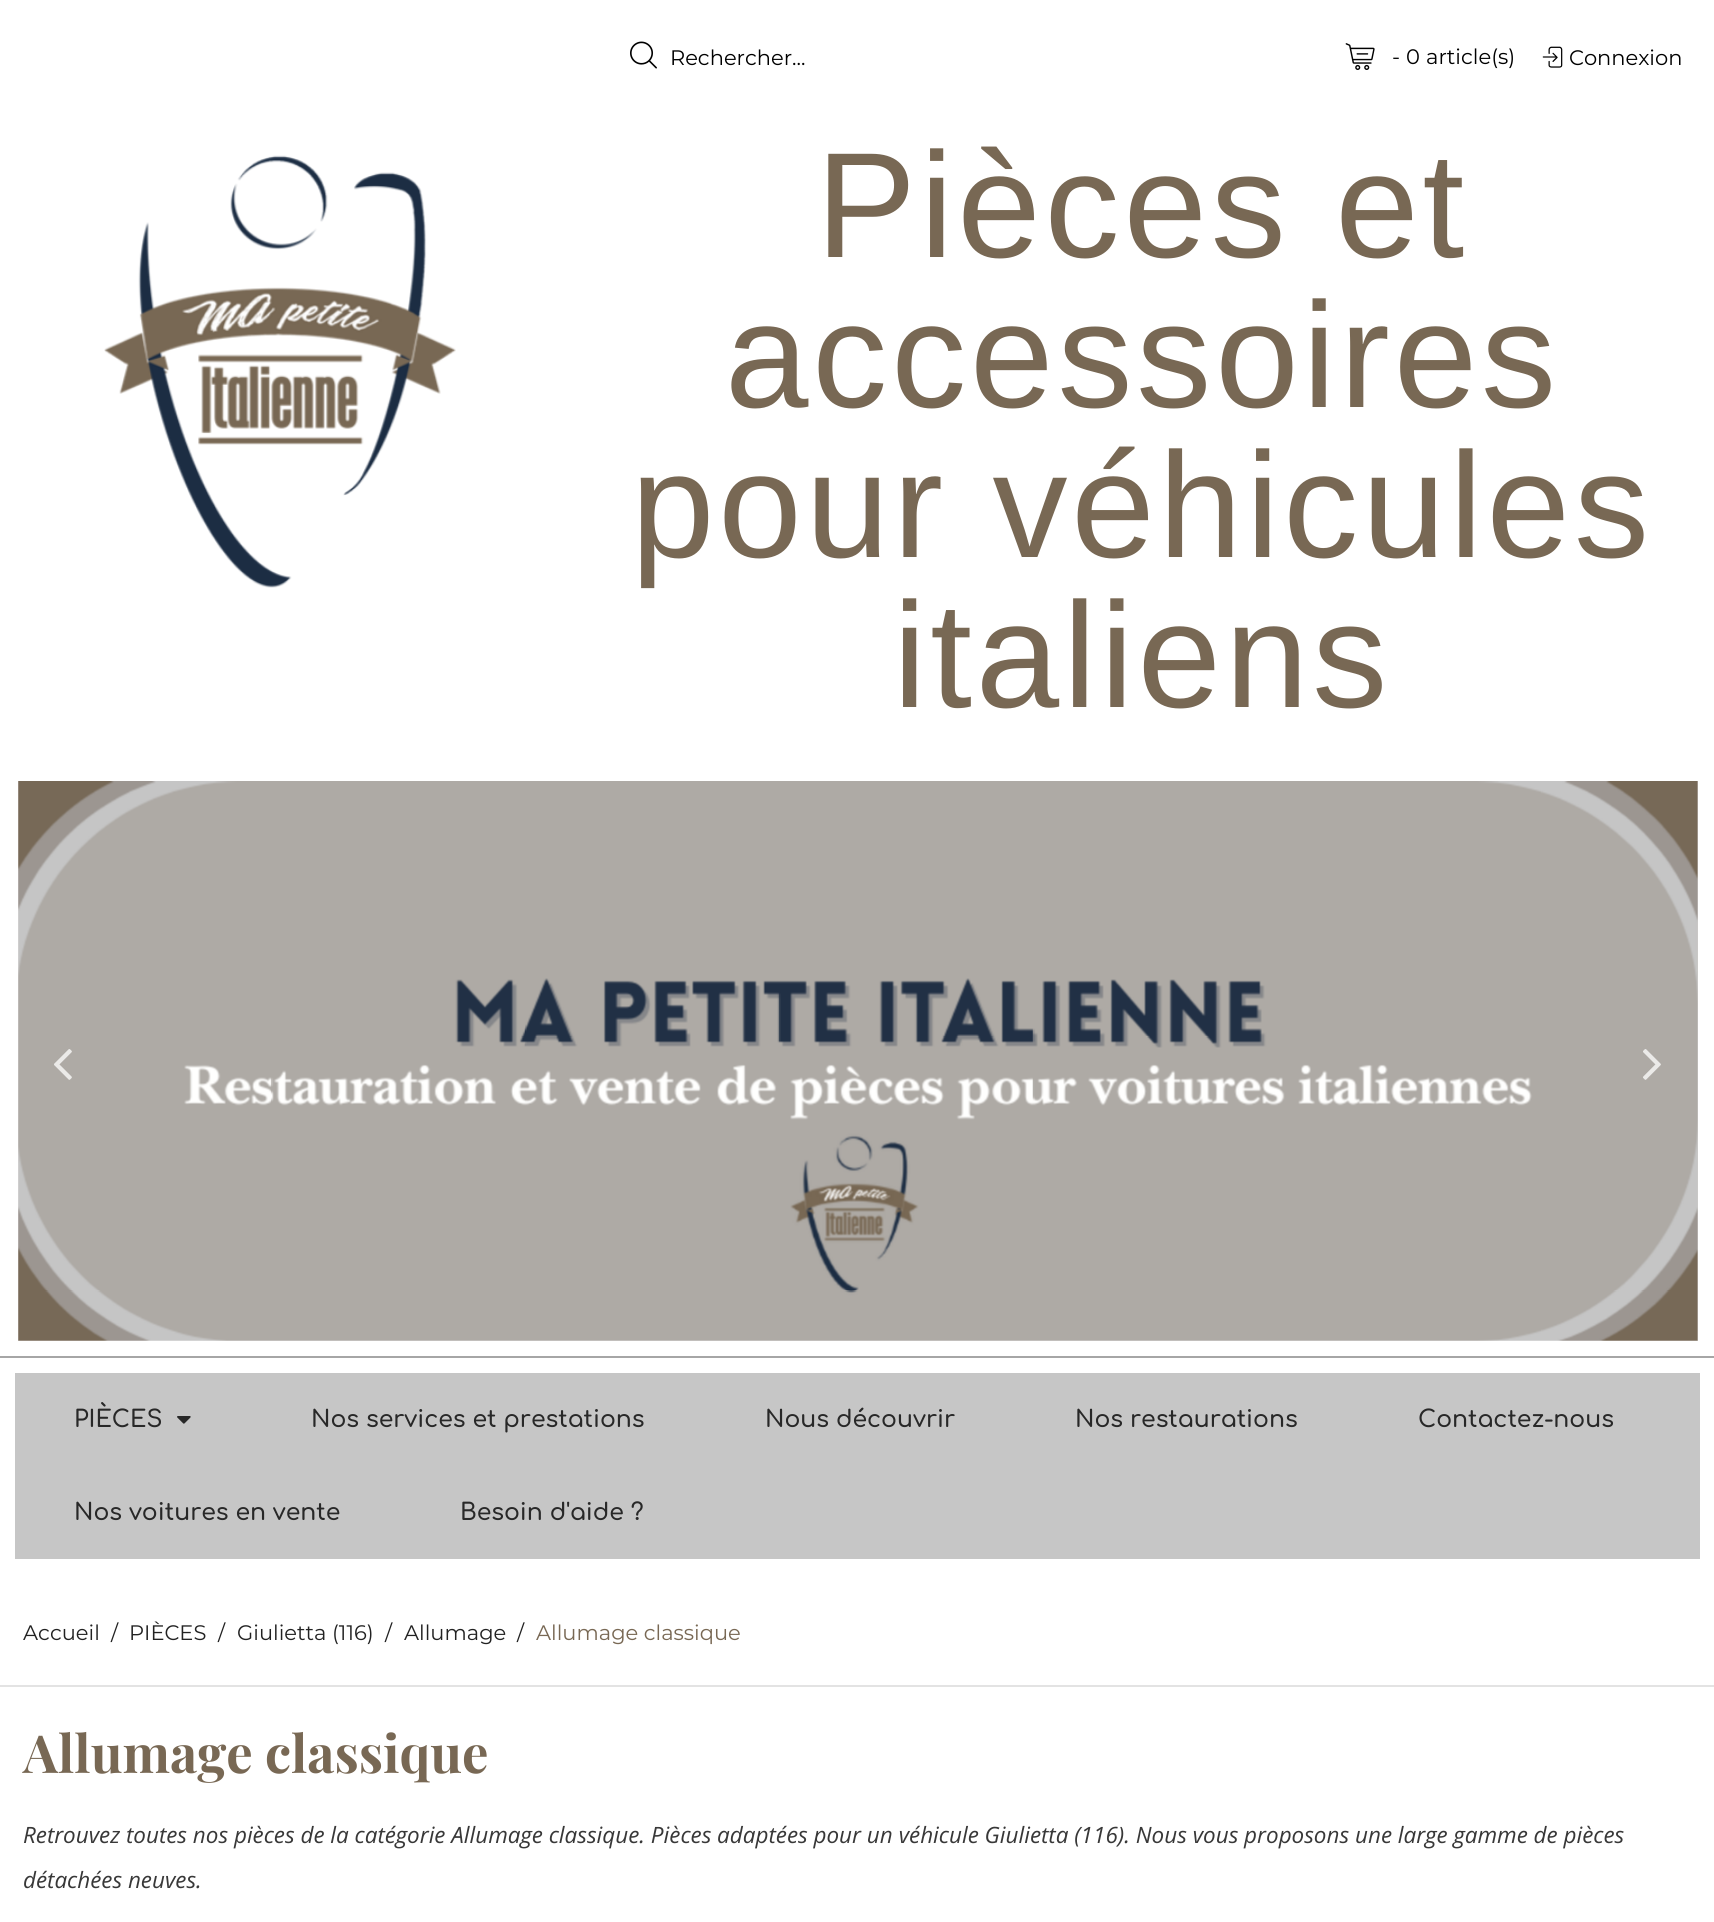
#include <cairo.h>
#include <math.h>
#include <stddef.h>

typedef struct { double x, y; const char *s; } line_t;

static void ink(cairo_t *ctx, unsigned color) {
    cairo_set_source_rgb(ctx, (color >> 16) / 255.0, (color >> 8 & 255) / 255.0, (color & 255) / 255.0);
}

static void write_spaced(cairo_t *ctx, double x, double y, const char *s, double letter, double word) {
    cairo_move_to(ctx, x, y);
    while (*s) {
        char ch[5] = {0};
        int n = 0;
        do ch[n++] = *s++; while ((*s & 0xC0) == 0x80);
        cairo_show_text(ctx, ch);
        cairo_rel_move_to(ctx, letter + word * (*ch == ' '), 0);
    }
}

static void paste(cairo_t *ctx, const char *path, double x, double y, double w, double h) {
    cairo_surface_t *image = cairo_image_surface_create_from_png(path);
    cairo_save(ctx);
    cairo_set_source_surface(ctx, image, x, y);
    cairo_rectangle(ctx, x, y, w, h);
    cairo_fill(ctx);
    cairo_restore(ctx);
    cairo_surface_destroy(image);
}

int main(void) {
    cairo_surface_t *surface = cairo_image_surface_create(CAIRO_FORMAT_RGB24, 1714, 1922);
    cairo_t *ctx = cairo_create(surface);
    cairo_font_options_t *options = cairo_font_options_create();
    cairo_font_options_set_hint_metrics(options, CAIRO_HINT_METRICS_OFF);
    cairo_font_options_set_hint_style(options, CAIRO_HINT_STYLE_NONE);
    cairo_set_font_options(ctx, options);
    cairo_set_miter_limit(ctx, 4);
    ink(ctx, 0xFFFFFF);
    cairo_paint(ctx);
    paste(ctx, "media/1.png", 104, 155, 352, 433);
    paste(ctx, "media/2.png", 630, 41, 27, 28);
    cairo_select_font_face(ctx, "Montserrat", CAIRO_FONT_SLANT_NORMAL, CAIRO_FONT_WEIGHT_NORMAL);
    cairo_set_font_size(ctx, 21);
    ink(ctx, 0x000000);
    cairo_move_to(ctx, 670, 65);
    cairo_show_text(ctx, "Rechercher...");
    paste(ctx, "media/3.png", 1345, 43, 30, 27);
    {
        static const line_t items[] = {
            {1392, 64, "-"},
            {1406, 64, "0"},
            {1426, 64, "article(s)"},
        };
        for (size_t i = 0; i < sizeof items / sizeof *items; i++) {
            cairo_move_to(ctx, items[i].x, items[i].y);
            cairo_show_text(ctx, items[i].s);
        }
    }
    paste(ctx, "media/4.png", 1542, 46, 21, 22);
    cairo_move_to(ctx, 1569, 65);
    cairo_show_text(ctx, "Connexion");
    cairo_select_font_face(ctx, "Liberation Sans", CAIRO_FONT_SLANT_NORMAL, CAIRO_FONT_WEIGHT_NORMAL);
    cairo_set_font_size(ctx, 150);
    ink(ctx, 0x786854);
    {
        static const line_t items[] = {
            {816, 257, "Pièces et"},
            {725, 407, "accessoires"},
            {631, 557, "pour véhicules"},
            {893, 707, "italiens"},
        };
        for (size_t i = 0; i < sizeof items / sizeof *items; i++) {
            write_spaced(ctx, items[i].x, items[i].y, items[i].s, 3.9, 0);
        }
    }
    paste(ctx, "media/5.png", 18, 781, 1, 560);
    paste(ctx, "media/6.png", 18, 781, 1680, 560);
    cairo_set_source_rgba(ctx, 0.671, 0.655, 0.639, 0.25);
    cairo_rectangle(ctx, 1697, 781, 1, 559);
    cairo_fill(ctx);
    paste(ctx, "media/7.png", 54, 1049, 18, 31);
    paste(ctx, "media/8.png", 1643, 1049, 18, 31);
    ink(ctx, 0xC6C6C6);
    cairo_rectangle(ctx, 15, 1373, 1685, 186);
    cairo_fill(ctx);
    cairo_select_font_face(ctx, "Comfortaa SemiBold", CAIRO_FONT_SLANT_NORMAL, CAIRO_FONT_WEIGHT_NORMAL);
    cairo_set_font_size(ctx, 23.5);
    ink(ctx, 0x282828);
    cairo_move_to(ctx, 74, 1427);
    cairo_show_text(ctx, "PIÈCES");
    paste(ctx, "media/9.png", 177, 1416, 14, 8);
    {
        static const line_t items[] = {
            {311, 1427, "Nos services et prestations"},
            {765, 1427, "Nous découvrir"},
            {1075, 1427, "Nos restaurations"},
            {1418, 1427, "Contactez-nous"},
            {74, 1520, "Nos voitures en vente"},
            {460, 1520, "Besoin d'aide ?"},
        };
        for (size_t i = 0; i < sizeof items / sizeof *items; i++) {
            cairo_move_to(ctx, items[i].x, items[i].y);
            cairo_show_text(ctx, items[i].s);
        }
    }
    ink(ctx, 0xA6A6A6);
    cairo_rectangle(ctx, 0, 1356, 1714, 2);
    cairo_fill(ctx);
    ink(ctx, 0xE3E3E3);
    cairo_rectangle(ctx, 0, 1685, 1714, 2);
    cairo_fill(ctx);
    cairo_select_font_face(ctx, "Montserrat", CAIRO_FONT_SLANT_NORMAL, CAIRO_FONT_WEIGHT_NORMAL);
    cairo_set_font_size(ctx, 21);
    ink(ctx, 0x222222);
    {
        static const line_t items[] = {
            {23, 1640, "Accueil"},
            {111, 1640, "/"},
            {129, 1640, "PIÈCES"},
            {218, 1640, "/"},
            {237, 1640, "Giulietta (116)"},
            {385, 1640, "/"},
            {404, 1640, "Allumage"},
            {517, 1640, "/"},
        };
        for (size_t i = 0; i < sizeof items / sizeof *items; i++) {
            cairo_move_to(ctx, items[i].x, items[i].y);
            cairo_show_text(ctx, items[i].s);
        }
    }
    ink(ctx, 0x786854);
    cairo_move_to(ctx, 536, 1640);
    cairo_show_text(ctx, "Allumage classique");
    cairo_select_font_face(ctx, "Playfair Display", CAIRO_FONT_SLANT_NORMAL, CAIRO_FONT_WEIGHT_BOLD);
    cairo_set_font_size(ctx, 52.5);
    cairo_move_to(ctx, 23, 1773);
    cairo_show_text(ctx, "Allumage classique");
    cairo_select_font_face(ctx, "Open Sans", CAIRO_FONT_SLANT_ITALIC, CAIRO_FONT_WEIGHT_NORMAL);
    cairo_set_font_size(ctx, 22.5);
    ink(ctx, 0x383838);
    cairo_move_to(ctx, 23, 1843);
    cairo_show_text(ctx, "Retrouvez toutes nos pièces de la catégorie Allumage classique. Pièces adaptées pour un véhicule Giulietta (116). Nous vous proposons une large gamme de pièces");
    cairo_move_to(ctx, 23, 1888);
    cairo_show_text(ctx, "détachées neuves.");
    cairo_surface_write_to_png(surface, "image.png");
    cairo_font_options_destroy(options);
    cairo_destroy(ctx);
    cairo_surface_destroy(surface);
    return 0;
}
